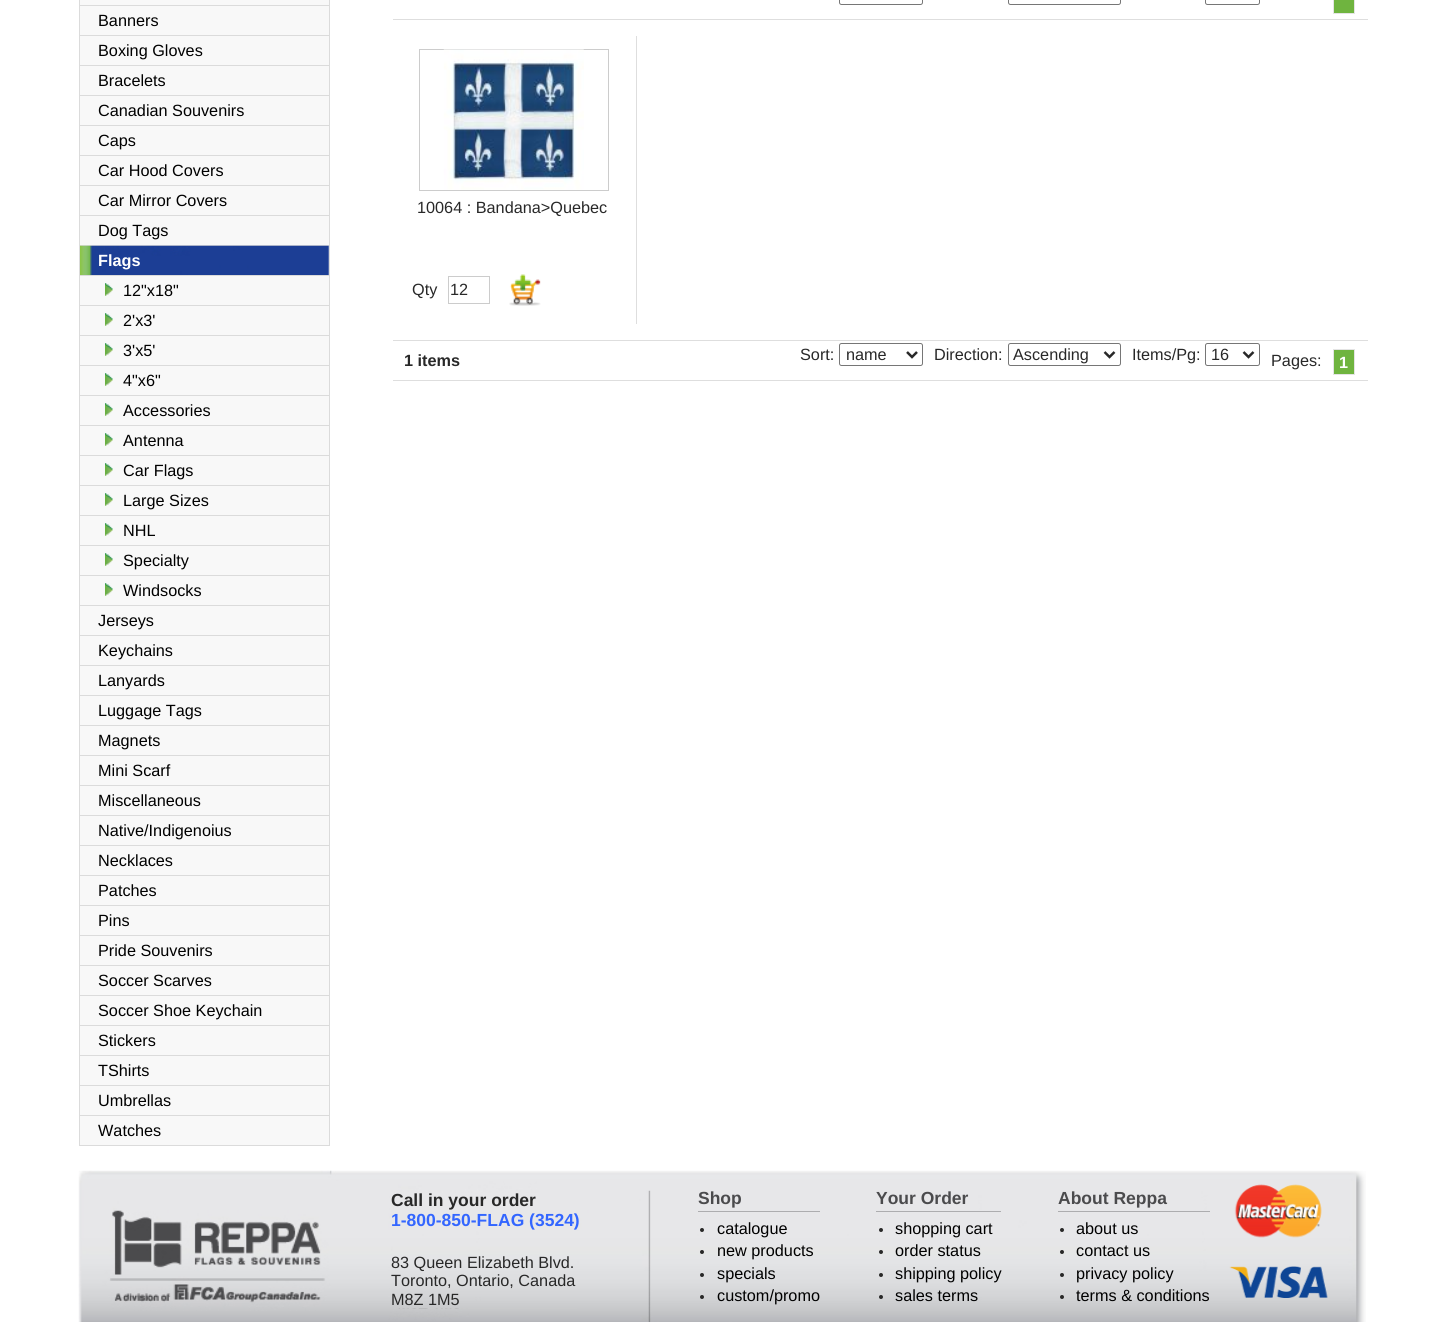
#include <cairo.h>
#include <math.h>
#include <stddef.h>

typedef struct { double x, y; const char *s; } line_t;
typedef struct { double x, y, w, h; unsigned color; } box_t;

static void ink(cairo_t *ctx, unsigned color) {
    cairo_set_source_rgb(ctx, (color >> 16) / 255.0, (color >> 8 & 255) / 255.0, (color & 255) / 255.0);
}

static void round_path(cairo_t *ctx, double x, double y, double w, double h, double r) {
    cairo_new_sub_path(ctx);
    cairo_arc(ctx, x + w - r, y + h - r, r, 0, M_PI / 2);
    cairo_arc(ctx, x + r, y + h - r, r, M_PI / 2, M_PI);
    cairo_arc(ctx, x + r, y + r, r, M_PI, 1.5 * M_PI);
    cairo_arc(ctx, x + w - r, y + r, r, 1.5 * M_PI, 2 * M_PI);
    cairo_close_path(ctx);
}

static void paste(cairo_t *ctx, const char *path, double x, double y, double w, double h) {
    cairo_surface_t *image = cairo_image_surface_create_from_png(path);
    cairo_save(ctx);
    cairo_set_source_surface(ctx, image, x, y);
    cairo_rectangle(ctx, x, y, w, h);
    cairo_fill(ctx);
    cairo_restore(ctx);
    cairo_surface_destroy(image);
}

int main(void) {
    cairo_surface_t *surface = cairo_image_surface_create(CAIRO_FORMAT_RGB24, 1431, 1322);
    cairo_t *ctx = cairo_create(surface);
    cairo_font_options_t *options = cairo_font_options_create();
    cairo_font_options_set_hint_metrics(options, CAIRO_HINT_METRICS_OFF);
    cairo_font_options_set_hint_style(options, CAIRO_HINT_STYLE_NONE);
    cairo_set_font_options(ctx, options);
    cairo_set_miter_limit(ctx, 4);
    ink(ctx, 0xFFFFFF);
    cairo_paint(ctx);
    {
        static const box_t items[] = {
            {80, 0, 249, 1145, 0xF8F8F8},
            {329, 0, 1, 1146, 0xDBDBDB},
            {79, 0, 1, 1146, 0xDBDBDB},
            {80, 5, 249, 1, 0xDBDBDB},
            {80, 35, 249, 1, 0xDBDBDB},
        };
        for (size_t i = 0; i < sizeof items / sizeof *items; i++) {
            ink(ctx, items[i].color);
            cairo_rectangle(ctx, items[i].x, items[i].y, items[i].w, items[i].h);
            cairo_fill(ctx);
        }
    }
    cairo_select_font_face(ctx, "Liberation Sans", CAIRO_FONT_SLANT_NORMAL, CAIRO_FONT_WEIGHT_NORMAL);
    cairo_set_font_size(ctx, 16.25);
    ink(ctx, 0x000000);
    cairo_move_to(ctx, 98, 26);
    cairo_show_text(ctx, "Banners");
    ink(ctx, 0xDBDBDB);
    cairo_rectangle(ctx, 80, 65, 249, 1);
    cairo_fill(ctx);
    ink(ctx, 0x000000);
    cairo_move_to(ctx, 98, 56);
    cairo_show_text(ctx, "Boxing Gloves");
    ink(ctx, 0xDBDBDB);
    cairo_rectangle(ctx, 80, 95, 249, 1);
    cairo_fill(ctx);
    ink(ctx, 0x000000);
    cairo_move_to(ctx, 98, 86);
    cairo_show_text(ctx, "Bracelets");
    ink(ctx, 0xDBDBDB);
    cairo_rectangle(ctx, 80, 125, 249, 1);
    cairo_fill(ctx);
    ink(ctx, 0x000000);
    cairo_move_to(ctx, 98, 116);
    cairo_show_text(ctx, "Canadian Souvenirs");
    ink(ctx, 0xDBDBDB);
    cairo_rectangle(ctx, 80, 155, 249, 1);
    cairo_fill(ctx);
    ink(ctx, 0x000000);
    cairo_move_to(ctx, 98, 146);
    cairo_show_text(ctx, "Caps");
    ink(ctx, 0xDBDBDB);
    cairo_rectangle(ctx, 80, 185, 249, 1);
    cairo_fill(ctx);
    ink(ctx, 0x000000);
    cairo_move_to(ctx, 98, 176);
    cairo_show_text(ctx, "Car Hood Covers");
    ink(ctx, 0xDBDBDB);
    cairo_rectangle(ctx, 80, 215, 249, 1);
    cairo_fill(ctx);
    ink(ctx, 0x000000);
    cairo_move_to(ctx, 98, 206);
    cairo_show_text(ctx, "Car Mirror Covers");
    ink(ctx, 0xDBDBDB);
    cairo_rectangle(ctx, 80, 245, 249, 1);
    cairo_fill(ctx);
    ink(ctx, 0x000000);
    cairo_move_to(ctx, 98, 236);
    cairo_show_text(ctx, "Dog Tags");
    paste(ctx, "media/1.png", 80, 245, 249, 30);
    ink(ctx, 0xDBDBDB);
    cairo_rectangle(ctx, 80, 275, 249, 1);
    cairo_fill(ctx);
    cairo_select_font_face(ctx, "Liberation Sans", CAIRO_FONT_SLANT_NORMAL, CAIRO_FONT_WEIGHT_BOLD);
    ink(ctx, 0xFFFFFF);
    cairo_move_to(ctx, 98, 266);
    cairo_show_text(ctx, "Flags");
    paste(ctx, "media/2.png", 105, 283, 8, 13);
    ink(ctx, 0xDBDBDB);
    cairo_rectangle(ctx, 80, 305, 249, 1);
    cairo_fill(ctx);
    cairo_select_font_face(ctx, "Liberation Sans", CAIRO_FONT_SLANT_NORMAL, CAIRO_FONT_WEIGHT_NORMAL);
    ink(ctx, 0x000000);
    cairo_move_to(ctx, 123, 296);
    cairo_show_text(ctx, "12\"x18\"");
    paste(ctx, "media/2.png", 105, 313, 8, 13);
    ink(ctx, 0xDBDBDB);
    cairo_rectangle(ctx, 80, 335, 249, 1);
    cairo_fill(ctx);
    ink(ctx, 0x000000);
    cairo_move_to(ctx, 123, 326);
    cairo_show_text(ctx, "2'x3'");
    paste(ctx, "media/2.png", 105, 343, 8, 13);
    ink(ctx, 0xDBDBDB);
    cairo_rectangle(ctx, 80, 365, 249, 1);
    cairo_fill(ctx);
    ink(ctx, 0x000000);
    cairo_move_to(ctx, 123, 356);
    cairo_show_text(ctx, "3'x5'");
    paste(ctx, "media/2.png", 105, 373, 8, 13);
    ink(ctx, 0xDBDBDB);
    cairo_rectangle(ctx, 80, 395, 249, 1);
    cairo_fill(ctx);
    ink(ctx, 0x000000);
    cairo_move_to(ctx, 123, 386);
    cairo_show_text(ctx, "4\"x6\"");
    paste(ctx, "media/2.png", 105, 403, 8, 13);
    ink(ctx, 0xDBDBDB);
    cairo_rectangle(ctx, 80, 425, 249, 1);
    cairo_fill(ctx);
    ink(ctx, 0x000000);
    cairo_move_to(ctx, 123, 416);
    cairo_show_text(ctx, "Accessories");
    paste(ctx, "media/2.png", 105, 433, 8, 13);
    ink(ctx, 0xDBDBDB);
    cairo_rectangle(ctx, 80, 455, 249, 1);
    cairo_fill(ctx);
    ink(ctx, 0x000000);
    cairo_move_to(ctx, 123, 446);
    cairo_show_text(ctx, "Antenna");
    paste(ctx, "media/2.png", 105, 463, 8, 13);
    ink(ctx, 0xDBDBDB);
    cairo_rectangle(ctx, 80, 485, 249, 1);
    cairo_fill(ctx);
    ink(ctx, 0x000000);
    cairo_move_to(ctx, 123, 476);
    cairo_show_text(ctx, "Car Flags");
    paste(ctx, "media/3.png", 105, 493, 8, 13);
    ink(ctx, 0xDBDBDB);
    cairo_rectangle(ctx, 80, 515, 249, 1);
    cairo_fill(ctx);
    ink(ctx, 0x000000);
    cairo_move_to(ctx, 123, 506);
    cairo_show_text(ctx, "Large Sizes");
    paste(ctx, "media/2.png", 105, 523, 8, 13);
    ink(ctx, 0xDBDBDB);
    cairo_rectangle(ctx, 80, 545, 249, 1);
    cairo_fill(ctx);
    ink(ctx, 0x000000);
    cairo_move_to(ctx, 123, 536);
    cairo_show_text(ctx, "NHL");
    paste(ctx, "media/2.png", 105, 553, 8, 13);
    ink(ctx, 0xDBDBDB);
    cairo_rectangle(ctx, 80, 575, 249, 1);
    cairo_fill(ctx);
    ink(ctx, 0x000000);
    cairo_move_to(ctx, 123, 566);
    cairo_show_text(ctx, "Specialty");
    paste(ctx, "media/2.png", 105, 583, 8, 13);
    ink(ctx, 0xDBDBDB);
    cairo_rectangle(ctx, 80, 605, 249, 1);
    cairo_fill(ctx);
    ink(ctx, 0x000000);
    cairo_move_to(ctx, 123, 596);
    cairo_show_text(ctx, "Windsocks");
    ink(ctx, 0xDBDBDB);
    cairo_rectangle(ctx, 80, 635, 249, 1);
    cairo_fill(ctx);
    ink(ctx, 0x000000);
    cairo_move_to(ctx, 98, 626);
    cairo_show_text(ctx, "Jerseys");
    ink(ctx, 0xDBDBDB);
    cairo_rectangle(ctx, 80, 665, 249, 1);
    cairo_fill(ctx);
    ink(ctx, 0x000000);
    cairo_move_to(ctx, 98, 656);
    cairo_show_text(ctx, "Keychains");
    ink(ctx, 0xDBDBDB);
    cairo_rectangle(ctx, 80, 695, 249, 1);
    cairo_fill(ctx);
    ink(ctx, 0x000000);
    cairo_move_to(ctx, 98, 686);
    cairo_show_text(ctx, "Lanyards");
    ink(ctx, 0xDBDBDB);
    cairo_rectangle(ctx, 80, 725, 249, 1);
    cairo_fill(ctx);
    ink(ctx, 0x000000);
    cairo_move_to(ctx, 98, 716);
    cairo_show_text(ctx, "Luggage Tags");
    ink(ctx, 0xDBDBDB);
    cairo_rectangle(ctx, 80, 755, 249, 1);
    cairo_fill(ctx);
    ink(ctx, 0x000000);
    cairo_move_to(ctx, 98, 746);
    cairo_show_text(ctx, "Magnets");
    ink(ctx, 0xDBDBDB);
    cairo_rectangle(ctx, 80, 785, 249, 1);
    cairo_fill(ctx);
    ink(ctx, 0x000000);
    cairo_move_to(ctx, 98, 776);
    cairo_show_text(ctx, "Mini Scarf");
    ink(ctx, 0xDBDBDB);
    cairo_rectangle(ctx, 80, 815, 249, 1);
    cairo_fill(ctx);
    ink(ctx, 0x000000);
    cairo_move_to(ctx, 98, 806);
    cairo_show_text(ctx, "Miscellaneous");
    ink(ctx, 0xDBDBDB);
    cairo_rectangle(ctx, 80, 845, 249, 1);
    cairo_fill(ctx);
    ink(ctx, 0x000000);
    cairo_move_to(ctx, 98, 836);
    cairo_show_text(ctx, "Native/Indigenoius");
    ink(ctx, 0xDBDBDB);
    cairo_rectangle(ctx, 80, 875, 249, 1);
    cairo_fill(ctx);
    ink(ctx, 0x000000);
    cairo_move_to(ctx, 98, 866);
    cairo_show_text(ctx, "Necklaces");
    ink(ctx, 0xDBDBDB);
    cairo_rectangle(ctx, 80, 905, 249, 1);
    cairo_fill(ctx);
    ink(ctx, 0x000000);
    cairo_move_to(ctx, 98, 896);
    cairo_show_text(ctx, "Patches");
    ink(ctx, 0xDBDBDB);
    cairo_rectangle(ctx, 80, 935, 249, 1);
    cairo_fill(ctx);
    ink(ctx, 0x000000);
    cairo_move_to(ctx, 98, 926);
    cairo_show_text(ctx, "Pins");
    ink(ctx, 0xDBDBDB);
    cairo_rectangle(ctx, 80, 965, 249, 1);
    cairo_fill(ctx);
    ink(ctx, 0x000000);
    cairo_move_to(ctx, 98, 956);
    cairo_show_text(ctx, "Pride Souvenirs");
    ink(ctx, 0xDBDBDB);
    cairo_rectangle(ctx, 80, 995, 249, 1);
    cairo_fill(ctx);
    ink(ctx, 0x000000);
    cairo_move_to(ctx, 98, 986);
    cairo_show_text(ctx, "Soccer Scarves");
    ink(ctx, 0xDBDBDB);
    cairo_rectangle(ctx, 80, 1025, 249, 1);
    cairo_fill(ctx);
    ink(ctx, 0x000000);
    cairo_move_to(ctx, 98, 1016);
    cairo_show_text(ctx, "Soccer Shoe Keychain");
    ink(ctx, 0xDBDBDB);
    cairo_rectangle(ctx, 80, 1055, 249, 1);
    cairo_fill(ctx);
    ink(ctx, 0x000000);
    cairo_move_to(ctx, 98, 1046);
    cairo_show_text(ctx, "Stickers");
    ink(ctx, 0xDBDBDB);
    cairo_rectangle(ctx, 80, 1085, 249, 1);
    cairo_fill(ctx);
    ink(ctx, 0x000000);
    cairo_move_to(ctx, 98, 1076);
    cairo_show_text(ctx, "TShirts");
    ink(ctx, 0xDBDBDB);
    cairo_rectangle(ctx, 80, 1115, 249, 1);
    cairo_fill(ctx);
    ink(ctx, 0x000000);
    cairo_move_to(ctx, 98, 1106);
    cairo_show_text(ctx, "Umbrellas");
    ink(ctx, 0xDBDBDB);
    cairo_rectangle(ctx, 80, 1145, 249, 1);
    cairo_fill(ctx);
    ink(ctx, 0x000000);
    cairo_move_to(ctx, 98, 1136);
    cairo_show_text(ctx, "Watches");
    ink(ctx, 0xDEDEDE);
    cairo_rectangle(ctx, 393, 19, 975, 1);
    cairo_fill(ctx);
    round_path(ctx, 839.5, -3.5, 83, 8, 2);
    ink(ctx, 0x767676);
    cairo_set_line_width(ctx, 1);
    cairo_stroke(ctx);
    round_path(ctx, 1008.5, -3.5, 112, 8, 2);
    cairo_stroke(ctx);
    round_path(ctx, 1205.5, -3.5, 54, 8, 2);
    cairo_stroke(ctx);
    ink(ctx, 0x6FB43F);
    cairo_rectangle(ctx, 1333.5, -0.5, 21, 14);
    cairo_fill_preserve(ctx);
    ink(ctx, 0xE4E4E4);
    cairo_stroke(ctx);
    ink(ctx, 0xDEDEDE);
    cairo_rectangle(ctx, 393, 340, 975, 1);
    cairo_fill(ctx);
    cairo_rectangle(ctx, 636, 36, 1, 288);
    cairo_fill(ctx);
    cairo_rectangle(ctx, 419.5, 49.5, 189, 141);
    ink(ctx, 0xCCCCCC);
    cairo_stroke(ctx);
    paste(ctx, "media/4.png", 443, 49, 141, 141);
    ink(ctx, 0x282828);
    cairo_move_to(ctx, 417, 213);
    cairo_show_text(ctx, "10064 : Bandana>Quebec");
    cairo_move_to(ctx, 412, 295);
    cairo_show_text(ctx, "Qty");
    cairo_rectangle(ctx, 448.5, 276.5, 41, 27);
    ink(ctx, 0xCCCCCC);
    cairo_stroke(ctx);
    ink(ctx, 0x282828);
    cairo_move_to(ctx, 450, 295);
    cairo_show_text(ctx, "12");
    paste(ctx, "media/5.png", 509, 274, 32, 32);
    ink(ctx, 0xDEDEDE);
    cairo_rectangle(ctx, 393, 380, 975, 1);
    cairo_fill(ctx);
    cairo_select_font_face(ctx, "Liberation Sans", CAIRO_FONT_SLANT_NORMAL, CAIRO_FONT_WEIGHT_BOLD);
    ink(ctx, 0x282828);
    cairo_move_to(ctx, 404, 366);
    cairo_show_text(ctx, "1 items");
    cairo_select_font_face(ctx, "Liberation Sans", CAIRO_FONT_SLANT_NORMAL, CAIRO_FONT_WEIGHT_NORMAL);
    cairo_move_to(ctx, 800, 360);
    cairo_show_text(ctx, "Sort:");
    round_path(ctx, 839.5, 343.5, 83, 22, 2);
    ink(ctx, 0x767676);
    cairo_stroke(ctx);
    cairo_new_path(ctx);
    cairo_move_to(ctx, 907, 352);
    cairo_line_to(ctx, 912, 357);
    cairo_line_to(ctx, 917, 352);
    ink(ctx, 0x282828);
    cairo_set_line_width(ctx, 2.5);
    cairo_stroke(ctx);
    cairo_move_to(ctx, 846, 360);
    cairo_show_text(ctx, "name");
    cairo_move_to(ctx, 934, 360);
    cairo_show_text(ctx, "Direction:");
    round_path(ctx, 1008.5, 343.5, 112, 22, 2);
    ink(ctx, 0x767676);
    cairo_set_line_width(ctx, 1);
    cairo_stroke(ctx);
    cairo_new_path(ctx);
    cairo_move_to(ctx, 1104.5, 352);
    cairo_line_to(ctx, 1109.5, 357);
    cairo_line_to(ctx, 1114.5, 352);
    ink(ctx, 0x282828);
    cairo_set_line_width(ctx, 2.5);
    cairo_stroke(ctx);
    cairo_move_to(ctx, 1013, 360);
    cairo_show_text(ctx, "Ascending");
    cairo_move_to(ctx, 1132, 360);
    cairo_show_text(ctx, "Items/Pg:");
    round_path(ctx, 1205.5, 343.5, 54, 22, 2);
    ink(ctx, 0x767676);
    cairo_set_line_width(ctx, 1);
    cairo_stroke(ctx);
    cairo_new_path(ctx);
    cairo_move_to(ctx, 1243.5, 352);
    cairo_line_to(ctx, 1248.5, 357);
    cairo_line_to(ctx, 1253.5, 352);
    ink(ctx, 0x282828);
    cairo_set_line_width(ctx, 2.5);
    cairo_stroke(ctx);
    cairo_move_to(ctx, 1211, 360);
    cairo_show_text(ctx, "16");
    cairo_move_to(ctx, 1271, 366);
    cairo_show_text(ctx, "Pages:");
    ink(ctx, 0x6FB43F);
    cairo_rectangle(ctx, 1333.5, 349.5, 21, 25);
    cairo_fill_preserve(ctx);
    ink(ctx, 0xE4E4E4);
    cairo_set_line_width(ctx, 1);
    cairo_stroke(ctx);
    cairo_select_font_face(ctx, "Liberation Sans", CAIRO_FONT_SLANT_NORMAL, CAIRO_FONT_WEIGHT_BOLD);
    ink(ctx, 0xFFFFFF);
    cairo_move_to(ctx, 1339, 368);
    cairo_show_text(ctx, "1");
    paste(ctx, "media/6.png", 78, 1170, 1288, 152);
    paste(ctx, "media/7.png", 394, 1193, 183, 116);
    cairo_set_font_size(ctx, 17.5);
    ink(ctx, 0x282828);
    cairo_move_to(ctx, 391, 1206);
    cairo_show_text(ctx, "Call in your order");
    ink(ctx, 0x3366FF);
    cairo_move_to(ctx, 391, 1226);
    cairo_show_text(ctx, "1-800-850-FLAG (3524)");
    cairo_select_font_face(ctx, "Liberation Sans", CAIRO_FONT_SLANT_NORMAL, CAIRO_FONT_WEIGHT_NORMAL);
    cairo_set_font_size(ctx, 16.25);
    ink(ctx, 0x282828);
    {
        static const line_t items[] = {
            {391, 1268, "83 Queen Elizabeth Blvd."},
            {391, 1286, "Toronto, Ontario, Canada"},
            {391, 1305, "M8Z 1M5"},
        };
        for (size_t i = 0; i < sizeof items / sizeof *items; i++) {
            cairo_move_to(ctx, items[i].x, items[i].y);
            cairo_show_text(ctx, items[i].s);
        }
    }
    ink(ctx, 0xADADAF);
    cairo_rectangle(ctx, 698, 1211, 122, 1);
    cairo_fill(ctx);
    cairo_select_font_face(ctx, "Liberation Sans", CAIRO_FONT_SLANT_NORMAL, CAIRO_FONT_WEIGHT_BOLD);
    cairo_set_font_size(ctx, 17.5);
    ink(ctx, 0x4B4B4D);
    cairo_move_to(ctx, 698, 1204);
    cairo_show_text(ctx, "Shop");
    ink(ctx, 0x282828);
    cairo_new_path(ctx);
    cairo_arc(ctx, 702, 1230, 2, 0, 2 * M_PI);
    cairo_fill(ctx);
    cairo_select_font_face(ctx, "Liberation Sans", CAIRO_FONT_SLANT_NORMAL, CAIRO_FONT_WEIGHT_NORMAL);
    cairo_set_font_size(ctx, 16.25);
    ink(ctx, 0x000000);
    cairo_move_to(ctx, 717, 1234);
    cairo_show_text(ctx, "catalogue");
    ink(ctx, 0x282828);
    cairo_new_path(ctx);
    cairo_arc(ctx, 702, 1252, 2, 0, 2 * M_PI);
    cairo_fill(ctx);
    ink(ctx, 0x000000);
    cairo_move_to(ctx, 717, 1256);
    cairo_show_text(ctx, "new products");
    ink(ctx, 0x282828);
    cairo_new_path(ctx);
    cairo_arc(ctx, 702, 1275, 2, 0, 2 * M_PI);
    cairo_fill(ctx);
    ink(ctx, 0x000000);
    cairo_move_to(ctx, 717, 1279);
    cairo_show_text(ctx, "specials");
    ink(ctx, 0x282828);
    cairo_new_path(ctx);
    cairo_arc(ctx, 702, 1297, 2, 0, 2 * M_PI);
    cairo_fill(ctx);
    ink(ctx, 0x000000);
    cairo_move_to(ctx, 717, 1301);
    cairo_show_text(ctx, "custom/promo");
    ink(ctx, 0xADADAF);
    cairo_rectangle(ctx, 876, 1211, 125, 1);
    cairo_fill(ctx);
    cairo_select_font_face(ctx, "Liberation Sans", CAIRO_FONT_SLANT_NORMAL, CAIRO_FONT_WEIGHT_BOLD);
    cairo_set_font_size(ctx, 17.5);
    ink(ctx, 0x4B4B4D);
    cairo_move_to(ctx, 876, 1204);
    cairo_show_text(ctx, "Your Order");
    ink(ctx, 0x282828);
    cairo_new_path(ctx);
    cairo_arc(ctx, 881, 1230, 2, 0, 2 * M_PI);
    cairo_fill(ctx);
    cairo_select_font_face(ctx, "Liberation Sans", CAIRO_FONT_SLANT_NORMAL, CAIRO_FONT_WEIGHT_NORMAL);
    cairo_set_font_size(ctx, 16.25);
    ink(ctx, 0x000000);
    cairo_move_to(ctx, 895, 1234);
    cairo_show_text(ctx, "shopping cart");
    ink(ctx, 0x282828);
    cairo_new_path(ctx);
    cairo_arc(ctx, 881, 1252, 2, 0, 2 * M_PI);
    cairo_fill(ctx);
    ink(ctx, 0x000000);
    cairo_move_to(ctx, 895, 1256);
    cairo_show_text(ctx, "order status");
    ink(ctx, 0x282828);
    cairo_new_path(ctx);
    cairo_arc(ctx, 881, 1275, 2, 0, 2 * M_PI);
    cairo_fill(ctx);
    ink(ctx, 0x000000);
    cairo_move_to(ctx, 895, 1279);
    cairo_show_text(ctx, "shipping policy");
    ink(ctx, 0x282828);
    cairo_new_path(ctx);
    cairo_arc(ctx, 881, 1297, 2, 0, 2 * M_PI);
    cairo_fill(ctx);
    ink(ctx, 0x000000);
    cairo_move_to(ctx, 895, 1301);
    cairo_show_text(ctx, "sales terms");
    ink(ctx, 0xADADAF);
    cairo_rectangle(ctx, 1058, 1211, 152, 1);
    cairo_fill(ctx);
    cairo_select_font_face(ctx, "Liberation Sans", CAIRO_FONT_SLANT_NORMAL, CAIRO_FONT_WEIGHT_BOLD);
    cairo_set_font_size(ctx, 17.5);
    ink(ctx, 0x4B4B4D);
    cairo_move_to(ctx, 1058, 1204);
    cairo_show_text(ctx, "About Reppa");
    ink(ctx, 0x282828);
    cairo_new_path(ctx);
    cairo_arc(ctx, 1062, 1230, 2, 0, 2 * M_PI);
    cairo_fill(ctx);
    cairo_select_font_face(ctx, "Liberation Sans", CAIRO_FONT_SLANT_NORMAL, CAIRO_FONT_WEIGHT_NORMAL);
    cairo_set_font_size(ctx, 16.25);
    ink(ctx, 0x000000);
    cairo_move_to(ctx, 1076, 1234);
    cairo_show_text(ctx, "about us");
    ink(ctx, 0x282828);
    cairo_new_path(ctx);
    cairo_arc(ctx, 1062, 1252, 2, 0, 2 * M_PI);
    cairo_fill(ctx);
    ink(ctx, 0x000000);
    cairo_move_to(ctx, 1076, 1256);
    cairo_show_text(ctx, "contact us");
    ink(ctx, 0x282828);
    cairo_new_path(ctx);
    cairo_arc(ctx, 1062, 1275, 2, 0, 2 * M_PI);
    cairo_fill(ctx);
    ink(ctx, 0x000000);
    cairo_move_to(ctx, 1076, 1279);
    cairo_show_text(ctx, "privacy policy");
    ink(ctx, 0x282828);
    cairo_new_path(ctx);
    cairo_arc(ctx, 1062, 1297, 2, 0, 2 * M_PI);
    cairo_fill(ctx);
    ink(ctx, 0x000000);
    cairo_move_to(ctx, 1076, 1301);
    cairo_show_text(ctx, "terms & conditions");
    paste(ctx, "media/8.png", 1234, 1184, 88, 54);
    paste(ctx, "media/9.png", 1229, 1266, 99, 32);
    cairo_surface_write_to_png(surface, "image.png");
    cairo_font_options_destroy(options);
    cairo_destroy(ctx);
    cairo_surface_destroy(surface);
    return 0;
}
